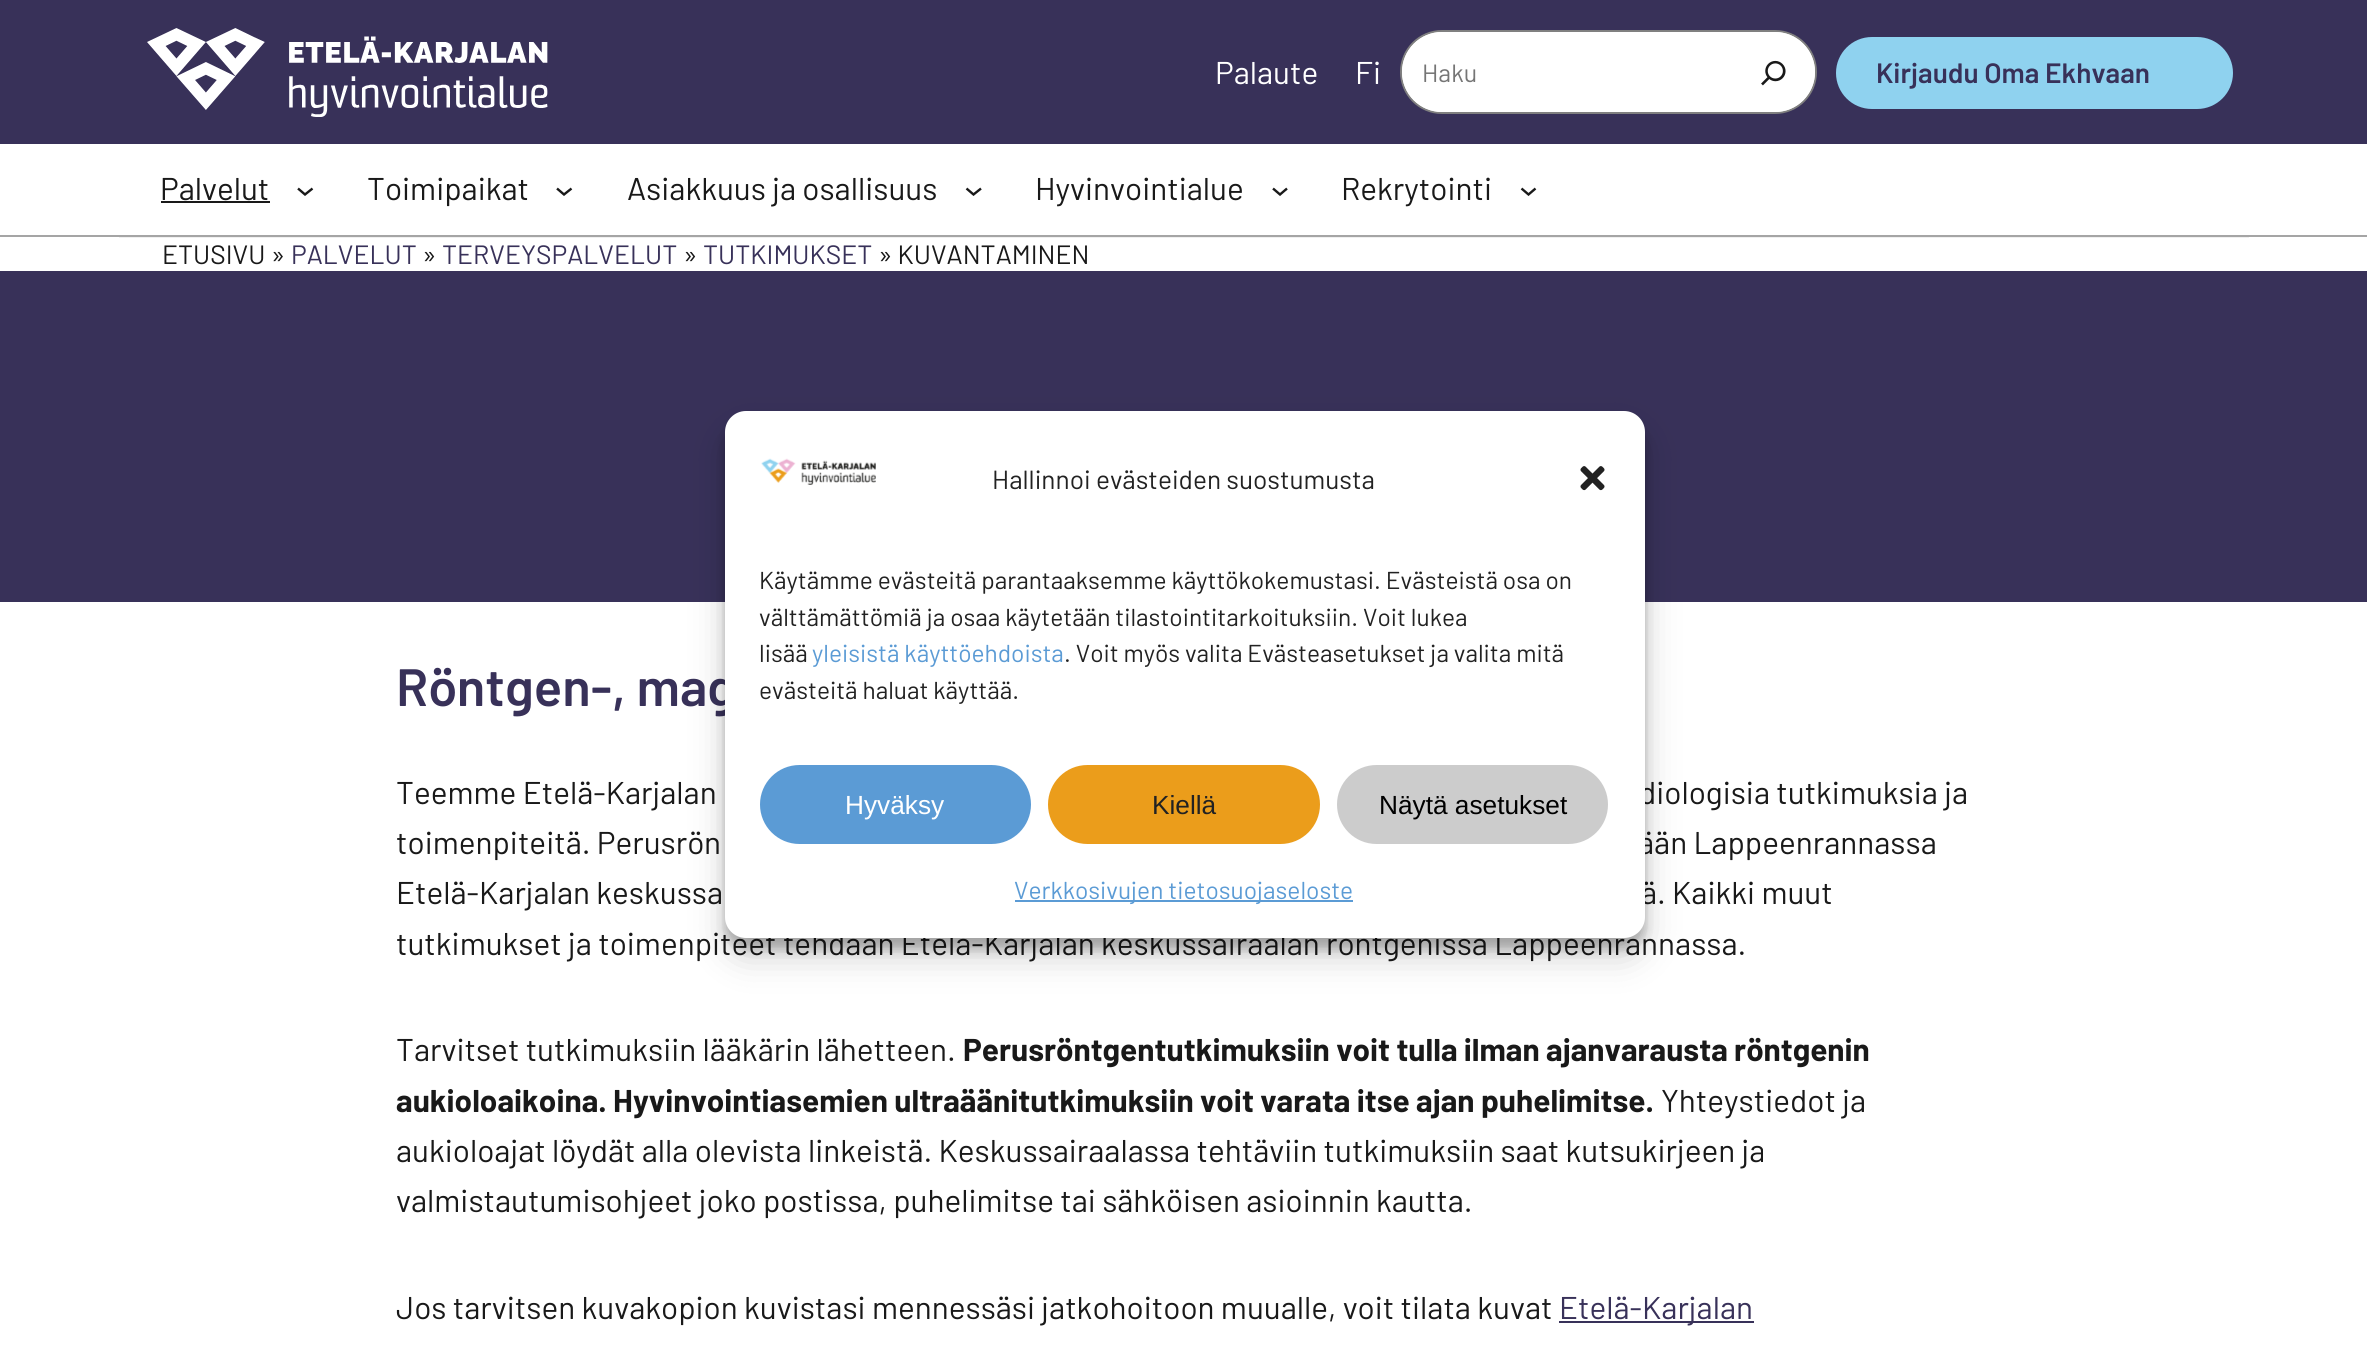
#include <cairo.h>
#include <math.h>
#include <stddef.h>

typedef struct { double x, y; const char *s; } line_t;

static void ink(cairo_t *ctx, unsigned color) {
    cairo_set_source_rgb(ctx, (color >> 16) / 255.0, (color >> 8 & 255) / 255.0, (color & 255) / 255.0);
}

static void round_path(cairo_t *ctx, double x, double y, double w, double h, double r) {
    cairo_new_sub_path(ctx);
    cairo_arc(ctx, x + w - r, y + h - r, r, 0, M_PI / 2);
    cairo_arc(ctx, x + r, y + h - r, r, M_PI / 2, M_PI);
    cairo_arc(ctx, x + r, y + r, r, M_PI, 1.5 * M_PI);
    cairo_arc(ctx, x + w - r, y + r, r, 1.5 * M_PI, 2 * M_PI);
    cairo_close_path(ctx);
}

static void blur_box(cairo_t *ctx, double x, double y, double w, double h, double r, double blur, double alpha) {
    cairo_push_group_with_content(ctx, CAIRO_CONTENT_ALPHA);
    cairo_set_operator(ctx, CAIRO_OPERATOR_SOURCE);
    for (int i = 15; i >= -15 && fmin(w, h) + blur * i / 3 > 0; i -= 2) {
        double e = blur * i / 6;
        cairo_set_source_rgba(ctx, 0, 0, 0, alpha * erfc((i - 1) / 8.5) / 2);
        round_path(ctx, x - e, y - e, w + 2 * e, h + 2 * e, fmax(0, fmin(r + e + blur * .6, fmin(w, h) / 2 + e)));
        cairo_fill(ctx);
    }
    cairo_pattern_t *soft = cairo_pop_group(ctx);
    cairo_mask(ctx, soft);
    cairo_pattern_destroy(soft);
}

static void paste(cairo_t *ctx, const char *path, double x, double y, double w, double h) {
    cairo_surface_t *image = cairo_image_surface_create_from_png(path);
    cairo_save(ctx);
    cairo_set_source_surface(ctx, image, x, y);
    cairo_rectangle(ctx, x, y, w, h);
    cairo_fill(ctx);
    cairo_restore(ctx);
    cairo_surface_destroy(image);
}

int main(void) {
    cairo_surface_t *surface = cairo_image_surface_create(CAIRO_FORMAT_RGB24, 2367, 1349);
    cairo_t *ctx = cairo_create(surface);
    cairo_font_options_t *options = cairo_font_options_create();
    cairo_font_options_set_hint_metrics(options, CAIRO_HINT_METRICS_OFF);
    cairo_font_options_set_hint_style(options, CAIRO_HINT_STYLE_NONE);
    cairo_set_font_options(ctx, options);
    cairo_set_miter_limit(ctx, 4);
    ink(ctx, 0xFFFFFF);
    cairo_paint(ctx);
    ink(ctx, 0xF0F0F0);
    cairo_rectangle(ctx, 119, 237, 2130, 1);
    cairo_fill(ctx);
    ink(ctx, 0x383159);
    cairo_rectangle(ctx, 0, 0, 2367, 144);
    cairo_fill(ctx);
    paste(ctx, "media/1.png", 147, 28, 401, 89);
    cairo_select_font_face(ctx, "Barlow", CAIRO_FONT_SLANT_NORMAL, CAIRO_FONT_WEIGHT_NORMAL);
    cairo_set_font_size(ctx, 31.5);
    ink(ctx, 0xFFFFFF);
    cairo_move_to(ctx, 1215, 84);
    cairo_show_text(ctx, "Palaute");
    cairo_move_to(ctx, 1355, 84);
    cairo_show_text(ctx, "Fi");
    round_path(ctx, 1401, 31, 415, 82, 41);
    cairo_fill_preserve(ctx);
    ink(ctx, 0x808080);
    cairo_stroke(ctx);
    ink(ctx, 0xFFFFFF);
    cairo_new_path(ctx);
    cairo_move_to(ctx, 1442, 32);
    cairo_line_to(ctx, 1733, 32);
    cairo_line_to(ctx, 1733, 112);
    cairo_line_to(ctx, 1442, 112);
    cairo_curve_to(ctx, 1420, 112, 1402, 94, 1402, 72);
    cairo_curve_to(ctx, 1402, 50, 1420, 32, 1442, 32);
    cairo_close_path(ctx);
    cairo_fill(ctx);
    cairo_set_font_size(ctx, 25);
    ink(ctx, 0x757575);
    cairo_move_to(ctx, 1422, 82);
    cairo_show_text(ctx, "Haku");
    ink(ctx, 0xFFFFFF);
    round_path(ctx, 1733, 32, 82, 80, 40);
    cairo_fill(ctx);
    paste(ctx, "media/2.png", 1761, 60, 25, 26);
    ink(ctx, 0x8FD2EF);
    round_path(ctx, 1836, 37, 397, 72, 36);
    cairo_fill(ctx);
    cairo_select_font_face(ctx, "Barlow SemiBold", CAIRO_FONT_SLANT_NORMAL, CAIRO_FONT_WEIGHT_NORMAL);
    cairo_set_font_size(ctx, 28);
    ink(ctx, 0x383159);
    cairo_move_to(ctx, 1876, 83);
    cairo_show_text(ctx, "Kirjaudu Oma Ekhvaan");
    ink(ctx, 0xA5A5A5);
    cairo_rectangle(ctx, 0, 235, 2367, 2);
    cairo_fill(ctx);
    cairo_select_font_face(ctx, "Barlow", CAIRO_FONT_SLANT_NORMAL, CAIRO_FONT_WEIGHT_NORMAL);
    cairo_set_font_size(ctx, 31.5);
    ink(ctx, 0x191919);
    cairo_move_to(ctx, 160, 200);
    cairo_show_text(ctx, "Palvelut");
    cairo_rectangle(ctx, 161, 201, 109, 2);
    cairo_fill(ctx);
    cairo_new_path(ctx);
    cairo_move_to(ctx, 298, 188.5);
    cairo_line_to(ctx, 305, 194.5);
    cairo_line_to(ctx, 312.5, 188.5);
    cairo_set_line_width(ctx, 2.4);
    cairo_stroke(ctx);
    cairo_move_to(ctx, 367, 200);
    cairo_show_text(ctx, "Toimipaikat");
    cairo_new_path(ctx);
    cairo_move_to(ctx, 557, 188.5);
    cairo_line_to(ctx, 564, 194.5);
    cairo_line_to(ctx, 571.5, 188.5);
    cairo_stroke(ctx);
    cairo_move_to(ctx, 627, 200);
    cairo_show_text(ctx, "Asiakkuus ja osallisuus");
    cairo_new_path(ctx);
    cairo_move_to(ctx, 966.5, 188.5);
    cairo_line_to(ctx, 973.5, 194.5);
    cairo_line_to(ctx, 981, 188.5);
    cairo_stroke(ctx);
    cairo_move_to(ctx, 1035, 200);
    cairo_show_text(ctx, "Hyvinvointialue");
    cairo_new_path(ctx);
    cairo_move_to(ctx, 1273, 188.5);
    cairo_line_to(ctx, 1280, 194.5);
    cairo_line_to(ctx, 1287, 188.5);
    cairo_stroke(ctx);
    cairo_move_to(ctx, 1341, 200);
    cairo_show_text(ctx, "Rekrytointi");
    cairo_new_path(ctx);
    cairo_move_to(ctx, 1521.5, 188.5);
    cairo_line_to(ctx, 1528.5, 194.5);
    cairo_line_to(ctx, 1535.5, 188.5);
    cairo_stroke(ctx);
    cairo_set_font_size(ctx, 26.5);
    cairo_move_to(ctx, 162, 264);
    cairo_show_text(ctx, "ETUSIVU »");
    ink(ctx, 0x383159);
    cairo_move_to(ctx, 291, 264);
    cairo_show_text(ctx, "PALVELUT");
    ink(ctx, 0x191919);
    cairo_move_to(ctx, 422, 264);
    cairo_show_text(ctx, "»");
    ink(ctx, 0x383159);
    cairo_move_to(ctx, 442, 264);
    cairo_show_text(ctx, "TERVEYSPALVELUT");
    ink(ctx, 0x191919);
    cairo_move_to(ctx, 683, 264);
    cairo_show_text(ctx, "»");
    ink(ctx, 0x383159);
    cairo_move_to(ctx, 703, 264);
    cairo_show_text(ctx, "TUTKIMUKSET");
    ink(ctx, 0x191919);
    cairo_move_to(ctx, 878, 264);
    cairo_show_text(ctx, "» KUVANTAMINEN");
    ink(ctx, 0x383159);
    cairo_rectangle(ctx, 0, 271, 2367, 331);
    cairo_fill(ctx);
    cairo_select_font_face(ctx, "Barlow SemiBold", CAIRO_FONT_SLANT_NORMAL, CAIRO_FONT_WEIGHT_NORMAL);
    cairo_set_font_size(ctx, 52.5);
    cairo_move_to(ctx, 396, 706);
    cairo_show_text(ctx, "Röntgen-, mag");
    cairo_select_font_face(ctx, "Barlow", CAIRO_FONT_SLANT_NORMAL, CAIRO_FONT_WEIGHT_NORMAL);
    cairo_set_font_size(ctx, 31.5);
    ink(ctx, 0x191919);
    {
        static const line_t items[] = {
            {396, 804, "Teemme Etelä-Karjalan"},
            {1639, 804, "diologisia tutkimuksia ja"},
            {396, 854, "toimenpiteitä. Perusrön"},
            {1638, 854, "ään Lappeenrannassa"},
            {396, 904, "Etelä-Karjalan keskussa"},
            {1641, 904, "ä. Kaikki muut"},
            {396, 955, "tutkimukset ja toimenpiteet tehdään Etelä-Karjalan keskussairaalan röntgenissä Lappeenrannassa."},
            {396, 1061, "Tarvitset tutkimuksiin lääkärin lähetteen."},
        };
        for (size_t i = 0; i < sizeof items / sizeof *items; i++) {
            cairo_move_to(ctx, items[i].x, items[i].y);
            cairo_show_text(ctx, items[i].s);
        }
    }
    cairo_select_font_face(ctx, "Barlow", CAIRO_FONT_SLANT_NORMAL, CAIRO_FONT_WEIGHT_BOLD);
    cairo_move_to(ctx, 963, 1061);
    cairo_show_text(ctx, "Perusröntgentutkimuksiin voit tulla ilman ajanvarausta röntgenin");
    cairo_move_to(ctx, 396, 1112);
    cairo_show_text(ctx, "aukioloaikoina. Hyvinvointiasemien ultraäänitutkimuksiin voit varata itse ajan puhelimitse.");
    cairo_select_font_face(ctx, "Barlow", CAIRO_FONT_SLANT_NORMAL, CAIRO_FONT_WEIGHT_NORMAL);
    {
        static const line_t items[] = {
            {1661, 1112, "Yhteystiedot ja"},
            {396, 1162, "aukioloajat löydät alla olevista linkeistä. Keskussairaalassa tehtäviin tutkimuksiin saat kutsukirjeen ja"},
            {396, 1212, "valmistautumisohjeet joko postissa, puhelimitse tai sähköisen asioinnin kautta."},
            {396, 1319, "Jos tarvitsen kuvakopion kuvistasi mennessäsi jatkohoitoon muualle, voit tilata kuvat"},
        };
        for (size_t i = 0; i < sizeof items / sizeof *items; i++) {
            cairo_move_to(ctx, items[i].x, items[i].y);
            cairo_show_text(ctx, items[i].s);
        }
    }
    ink(ctx, 0x383159);
    cairo_rectangle(ctx, 1559, 1321, 195, 2);
    cairo_fill(ctx);
    cairo_move_to(ctx, 1559, 1319);
    cairo_show_text(ctx, "Etelä-Karjalan");
    ink(ctx, 0x000000);
    blur_box(ctx, 725, 422, 920, 527, 21, 5, 0.23);
    blur_box(ctx, 725, 429, 920, 527, 21, 17.5, 0.19);
    ink(ctx, 0xFFFFFF);
    round_path(ctx, 725, 411, 920, 527, 21);
    cairo_fill(ctx);
    paste(ctx, "media/3.png", 761, 458, 115, 27);
    cairo_set_font_size(ctx, 26.25);
    ink(ctx, 0x222222);
    cairo_move_to(ctx, 992, 489);
    cairo_show_text(ctx, "Hallinnoi evästeiden suostumusta");
    paste(ctx, "media/4.png", 1580, 466, 25, 25);
    cairo_set_font_size(ctx, 24.5);
    {
        static const line_t items[] = {
            {759, 589, "Käytämme evästeitä parantaaksemme käyttökokemustasi. Evästeistä osa on"},
            {759, 626, "välttämättömiä ja osaa käytetään tilastointitarkoituksiin. Voit lukea"},
            {759, 662, "lisää"},
        };
        for (size_t i = 0; i < sizeof items / sizeof *items; i++) {
            cairo_move_to(ctx, items[i].x, items[i].y);
            cairo_show_text(ctx, items[i].s);
        }
    }
    ink(ctx, 0x5B9BD5);
    cairo_move_to(ctx, 812, 662);
    cairo_show_text(ctx, "yleisistä käyttöehdoista");
    ink(ctx, 0x222222);
    cairo_move_to(ctx, 1064, 662);
    cairo_show_text(ctx, ". Voit myös valita Evästeasetukset ja valita mitä");
    cairo_move_to(ctx, 759, 699);
    cairo_show_text(ctx, "evästeitä haluat käyttää.");
    ink(ctx, 0x5B9BD5);
    round_path(ctx, 761, 766, 269, 77, 38.5);
    cairo_fill_preserve(ctx);
    cairo_set_line_width(ctx, 2);
    cairo_stroke(ctx);
    cairo_select_font_face(ctx, "Liberation Sans", CAIRO_FONT_SLANT_NORMAL, CAIRO_FONT_WEIGHT_NORMAL);
    cairo_set_font_size(ctx, 26.25);
    ink(ctx, 0xFFFFFF);
    cairo_move_to(ctx, 845, 814);
    cairo_show_text(ctx, "Hyväksy");
    ink(ctx, 0xEB9D1B);
    round_path(ctx, 1049, 766, 270, 77, 38.5);
    cairo_fill_preserve(ctx);
    cairo_stroke(ctx);
    ink(ctx, 0x222222);
    cairo_move_to(ctx, 1152, 814);
    cairo_show_text(ctx, "Kiellä");
    ink(ctx, 0xCCCCCC);
    round_path(ctx, 1338, 766, 269, 77, 38.5);
    cairo_fill_preserve(ctx);
    cairo_stroke(ctx);
    ink(ctx, 0x000000);
    cairo_move_to(ctx, 1379, 814);
    cairo_show_text(ctx, "Näytä asetukset");
    ink(ctx, 0x5B9BD5);
    cairo_rectangle(ctx, 1015, 900, 338, 2);
    cairo_fill(ctx);
    cairo_select_font_face(ctx, "Barlow", CAIRO_FONT_SLANT_NORMAL, CAIRO_FONT_WEIGHT_NORMAL);
    cairo_set_font_size(ctx, 24.5);
    cairo_move_to(ctx, 1014, 899);
    cairo_show_text(ctx, "Verkkosivujen tietosuojaseloste");
    cairo_surface_write_to_png(surface, "image.png");
    cairo_font_options_destroy(options);
    cairo_destroy(ctx);
    cairo_surface_destroy(surface);
    return 0;
}
